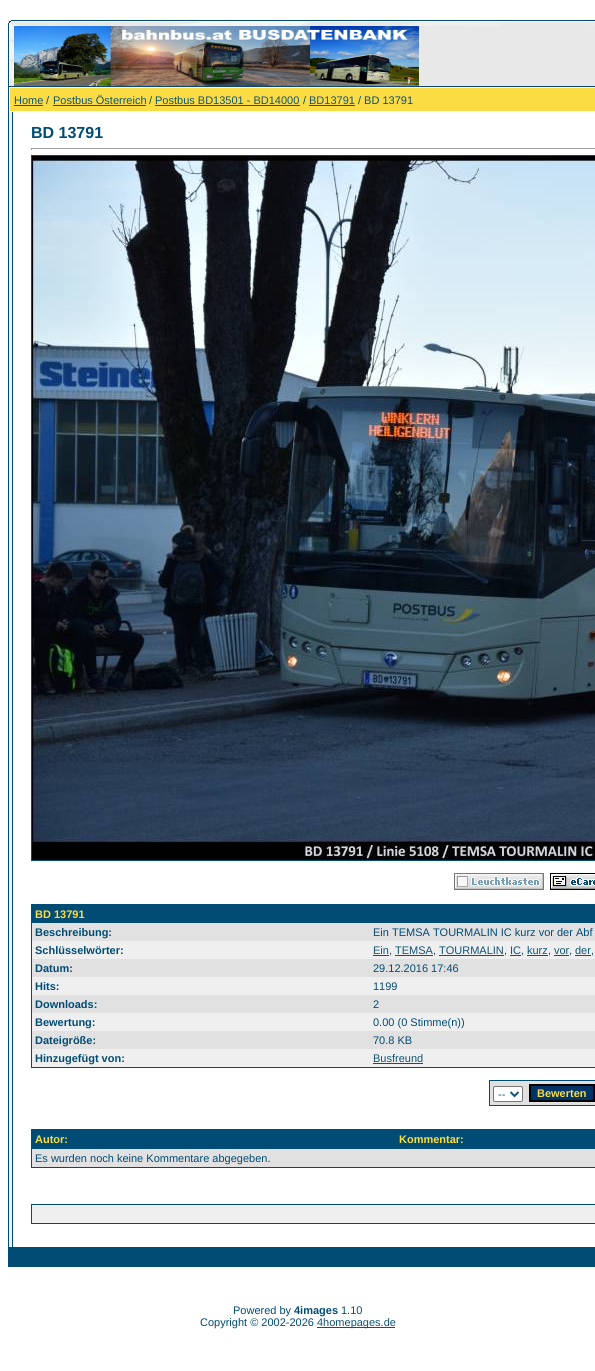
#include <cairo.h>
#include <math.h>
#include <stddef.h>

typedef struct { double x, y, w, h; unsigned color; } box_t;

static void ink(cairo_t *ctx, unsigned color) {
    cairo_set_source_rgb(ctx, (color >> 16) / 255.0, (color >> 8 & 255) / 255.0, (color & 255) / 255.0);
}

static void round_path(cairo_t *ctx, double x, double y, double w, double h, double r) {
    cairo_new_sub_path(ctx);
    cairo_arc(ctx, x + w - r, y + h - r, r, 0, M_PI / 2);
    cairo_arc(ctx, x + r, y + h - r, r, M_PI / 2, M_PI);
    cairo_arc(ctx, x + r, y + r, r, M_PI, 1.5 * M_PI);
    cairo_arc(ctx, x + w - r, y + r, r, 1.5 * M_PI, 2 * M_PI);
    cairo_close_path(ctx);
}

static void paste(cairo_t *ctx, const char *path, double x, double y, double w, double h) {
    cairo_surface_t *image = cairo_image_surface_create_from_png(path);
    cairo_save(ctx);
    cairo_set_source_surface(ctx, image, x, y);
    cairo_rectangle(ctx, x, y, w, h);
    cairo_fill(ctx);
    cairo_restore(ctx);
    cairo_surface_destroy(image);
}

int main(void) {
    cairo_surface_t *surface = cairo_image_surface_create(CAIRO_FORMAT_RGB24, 595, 1371);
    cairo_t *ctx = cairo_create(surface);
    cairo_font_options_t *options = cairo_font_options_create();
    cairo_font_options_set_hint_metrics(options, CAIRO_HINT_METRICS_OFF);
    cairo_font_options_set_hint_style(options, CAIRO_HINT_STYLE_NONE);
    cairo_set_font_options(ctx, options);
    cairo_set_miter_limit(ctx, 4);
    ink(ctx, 0xFFFFFF);
    cairo_paint(ctx);
    ink(ctx, 0xE8E8E8);
    cairo_rectangle(ctx, 8, 20, 587, 66);
    cairo_fill(ctx);
    paste(ctx, "media/1.png", 8, 20, 6, 6);
    paste(ctx, "media/2.png", 14, 20, 581, 6);
    paste(ctx, "media/3.png", 8, 26, 6, 60);
    paste(ctx, "media/4.png", 14, 26, 405, 60);
    {
        static const box_t items[] = {
            {8, 86, 587, 1181, 0x004C75},
            {9, 87, 586, 1160, 0xFFFFFF},
            {10, 88, 585, 23, 0xFCDC43},
        };
        for (size_t i = 0; i < sizeof items / sizeof *items; i++) {
            ink(ctx, items[i].color);
            cairo_rectangle(ctx, items[i].x, items[i].y, items[i].w, items[i].h);
            cairo_fill(ctx);
        }
    }
    cairo_select_font_face(ctx, "Liberation Sans", CAIRO_FONT_SLANT_NORMAL, CAIRO_FONT_WEIGHT_NORMAL);
    cairo_set_font_size(ctx, 11);
    ink(ctx, 0x0F5475);
    cairo_move_to(ctx, 14, 104);
    cairo_show_text(ctx, "Home");
    cairo_rectangle(ctx, 14, 105, 29, 1);
    cairo_fill(ctx);
    ink(ctx, 0x004C75);
    cairo_move_to(ctx, 46, 104);
    cairo_show_text(ctx, "/");
    ink(ctx, 0x0F5475);
    cairo_move_to(ctx, 53, 104);
    cairo_show_text(ctx, "Postbus Österreich");
    cairo_rectangle(ctx, 53, 105, 93, 1);
    cairo_fill(ctx);
    ink(ctx, 0x004C75);
    cairo_move_to(ctx, 149, 104);
    cairo_show_text(ctx, "/");
    ink(ctx, 0x0F5475);
    cairo_move_to(ctx, 155, 104);
    cairo_show_text(ctx, "Postbus BD13501 - BD14000");
    cairo_rectangle(ctx, 155, 105, 145, 1);
    cairo_fill(ctx);
    ink(ctx, 0x004C75);
    cairo_move_to(ctx, 303, 104);
    cairo_show_text(ctx, "/");
    ink(ctx, 0x0F5475);
    cairo_move_to(ctx, 309, 104);
    cairo_show_text(ctx, "BD13791");
    cairo_rectangle(ctx, 309, 105, 46, 1);
    cairo_fill(ctx);
    ink(ctx, 0x004C75);
    cairo_move_to(ctx, 358, 104);
    cairo_show_text(ctx, "/ BD 13791");
    ink(ctx, 0xEFEFEF);
    cairo_rectangle(ctx, 9, 112, 3, 1135);
    cairo_fill(ctx);
    ink(ctx, 0x004C75);
    cairo_rectangle(ctx, 12, 112, 1, 1135);
    cairo_fill(ctx);
    cairo_select_font_face(ctx, "Liberation Sans", CAIRO_FONT_SLANT_NORMAL, CAIRO_FONT_WEIGHT_BOLD);
    cairo_set_font_size(ctx, 16);
    cairo_move_to(ctx, 31, 138);
    cairo_show_text(ctx, "BD 13791");
    ink(ctx, 0x9F9F9F);
    cairo_rectangle(ctx, 31, 148, 564, 1);
    cairo_fill(ctx);
    cairo_rectangle(ctx, 31, 148, 1, 2);
    cairo_fill(ctx);
    cairo_rectangle(ctx, 31.5, 155.5, 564, 705);
    ink(ctx, 0x004C75);
    cairo_set_line_width(ctx, 1);
    cairo_stroke(ctx);
    paste(ctx, "media/5.png", 32, 156, 563, 704);
    paste(ctx, "media/6.png", 454, 873, 90, 17);
    paste(ctx, "media/7.png", 550, 873, 45, 17);
    cairo_rectangle(ctx, 31, 904, 564, 164);
    cairo_fill(ctx);
    cairo_set_font_size(ctx, 11);
    ink(ctx, 0xFCDC43);
    cairo_move_to(ctx, 35, 918);
    cairo_show_text(ctx, "BD 13791");
    ink(ctx, 0xE1E1E1);
    cairo_rectangle(ctx, 32, 923, 563, 18);
    cairo_fill(ctx);
    ink(ctx, 0x004C75);
    cairo_move_to(ctx, 35, 936);
    cairo_show_text(ctx, "Beschreibung:");
    cairo_select_font_face(ctx, "Liberation Sans", CAIRO_FONT_SLANT_NORMAL, CAIRO_FONT_WEIGHT_NORMAL);
    cairo_move_to(ctx, 373, 936);
    cairo_show_text(ctx, "Ein TEMSA TOURMALIN IC kurz vor der Abf");
    ink(ctx, 0xEFEFEF);
    cairo_rectangle(ctx, 32, 941, 563, 18);
    cairo_fill(ctx);
    cairo_select_font_face(ctx, "Liberation Sans", CAIRO_FONT_SLANT_NORMAL, CAIRO_FONT_WEIGHT_BOLD);
    ink(ctx, 0x004C75);
    cairo_move_to(ctx, 35, 954);
    cairo_show_text(ctx, "Schlüsselwörter:");
    cairo_select_font_face(ctx, "Liberation Sans", CAIRO_FONT_SLANT_NORMAL, CAIRO_FONT_WEIGHT_NORMAL);
    ink(ctx, 0x0F5475);
    cairo_move_to(ctx, 373, 954);
    cairo_show_text(ctx, "Ein");
    cairo_rectangle(ctx, 373, 955, 16, 1);
    cairo_fill(ctx);
    ink(ctx, 0x004C75);
    cairo_move_to(ctx, 389, 954);
    cairo_show_text(ctx, ",");
    ink(ctx, 0x0F5475);
    cairo_move_to(ctx, 395, 954);
    cairo_show_text(ctx, "TEMSA");
    cairo_rectangle(ctx, 395, 955, 38, 1);
    cairo_fill(ctx);
    ink(ctx, 0x004C75);
    cairo_move_to(ctx, 433, 954);
    cairo_show_text(ctx, ",");
    ink(ctx, 0x0F5475);
    cairo_move_to(ctx, 439, 954);
    cairo_show_text(ctx, "TOURMALIN");
    cairo_rectangle(ctx, 439, 955, 65, 1);
    cairo_fill(ctx);
    ink(ctx, 0x004C75);
    cairo_move_to(ctx, 504, 954);
    cairo_show_text(ctx, ",");
    ink(ctx, 0x0F5475);
    cairo_move_to(ctx, 510, 954);
    cairo_show_text(ctx, "IC");
    cairo_rectangle(ctx, 510, 955, 11, 1);
    cairo_fill(ctx);
    ink(ctx, 0x004C75);
    cairo_move_to(ctx, 521, 954);
    cairo_show_text(ctx, ",");
    ink(ctx, 0x0F5475);
    cairo_move_to(ctx, 527, 954);
    cairo_show_text(ctx, "kurz");
    cairo_rectangle(ctx, 527, 955, 21, 1);
    cairo_fill(ctx);
    ink(ctx, 0x004C75);
    cairo_move_to(ctx, 548, 954);
    cairo_show_text(ctx, ",");
    ink(ctx, 0x0F5475);
    cairo_move_to(ctx, 554, 954);
    cairo_show_text(ctx, "vor");
    cairo_rectangle(ctx, 554, 955, 15, 1);
    cairo_fill(ctx);
    ink(ctx, 0x004C75);
    cairo_move_to(ctx, 569, 954);
    cairo_show_text(ctx, ",");
    ink(ctx, 0x0F5475);
    cairo_move_to(ctx, 575, 954);
    cairo_show_text(ctx, "der");
    cairo_rectangle(ctx, 575, 955, 16, 1);
    cairo_fill(ctx);
    ink(ctx, 0x004C75);
    cairo_move_to(ctx, 591, 954);
    cairo_show_text(ctx, ",");
    ink(ctx, 0xE1E1E1);
    cairo_rectangle(ctx, 32, 959, 563, 18);
    cairo_fill(ctx);
    cairo_select_font_face(ctx, "Liberation Sans", CAIRO_FONT_SLANT_NORMAL, CAIRO_FONT_WEIGHT_BOLD);
    ink(ctx, 0x004C75);
    cairo_move_to(ctx, 35, 972);
    cairo_show_text(ctx, "Datum:");
    cairo_select_font_face(ctx, "Liberation Sans", CAIRO_FONT_SLANT_NORMAL, CAIRO_FONT_WEIGHT_NORMAL);
    cairo_move_to(ctx, 373, 972);
    cairo_show_text(ctx, "29.12.2016 17:46");
    ink(ctx, 0xEFEFEF);
    cairo_rectangle(ctx, 32, 977, 563, 18);
    cairo_fill(ctx);
    cairo_select_font_face(ctx, "Liberation Sans", CAIRO_FONT_SLANT_NORMAL, CAIRO_FONT_WEIGHT_BOLD);
    ink(ctx, 0x004C75);
    cairo_move_to(ctx, 35, 990);
    cairo_show_text(ctx, "Hits:");
    cairo_select_font_face(ctx, "Liberation Sans", CAIRO_FONT_SLANT_NORMAL, CAIRO_FONT_WEIGHT_NORMAL);
    cairo_move_to(ctx, 373, 990);
    cairo_show_text(ctx, "1199");
    ink(ctx, 0xE1E1E1);
    cairo_rectangle(ctx, 32, 995, 563, 18);
    cairo_fill(ctx);
    cairo_select_font_face(ctx, "Liberation Sans", CAIRO_FONT_SLANT_NORMAL, CAIRO_FONT_WEIGHT_BOLD);
    ink(ctx, 0x004C75);
    cairo_move_to(ctx, 35, 1008);
    cairo_show_text(ctx, "Downloads:");
    cairo_select_font_face(ctx, "Liberation Sans", CAIRO_FONT_SLANT_NORMAL, CAIRO_FONT_WEIGHT_NORMAL);
    cairo_move_to(ctx, 373, 1008);
    cairo_show_text(ctx, "2");
    ink(ctx, 0xEFEFEF);
    cairo_rectangle(ctx, 32, 1013, 563, 18);
    cairo_fill(ctx);
    cairo_select_font_face(ctx, "Liberation Sans", CAIRO_FONT_SLANT_NORMAL, CAIRO_FONT_WEIGHT_BOLD);
    ink(ctx, 0x004C75);
    cairo_move_to(ctx, 35, 1026);
    cairo_show_text(ctx, "Bewertung:");
    cairo_select_font_face(ctx, "Liberation Sans", CAIRO_FONT_SLANT_NORMAL, CAIRO_FONT_WEIGHT_NORMAL);
    cairo_move_to(ctx, 373, 1026);
    cairo_show_text(ctx, "0.00 (0 Stimme(n))");
    ink(ctx, 0xE1E1E1);
    cairo_rectangle(ctx, 32, 1031, 563, 18);
    cairo_fill(ctx);
    cairo_select_font_face(ctx, "Liberation Sans", CAIRO_FONT_SLANT_NORMAL, CAIRO_FONT_WEIGHT_BOLD);
    ink(ctx, 0x004C75);
    cairo_move_to(ctx, 35, 1044);
    cairo_show_text(ctx, "Dateigröße:");
    cairo_select_font_face(ctx, "Liberation Sans", CAIRO_FONT_SLANT_NORMAL, CAIRO_FONT_WEIGHT_NORMAL);
    cairo_move_to(ctx, 373, 1044);
    cairo_show_text(ctx, "70.8 KB");
    ink(ctx, 0xEFEFEF);
    cairo_rectangle(ctx, 32, 1049, 563, 18);
    cairo_fill(ctx);
    cairo_select_font_face(ctx, "Liberation Sans", CAIRO_FONT_SLANT_NORMAL, CAIRO_FONT_WEIGHT_BOLD);
    ink(ctx, 0x004C75);
    cairo_move_to(ctx, 35, 1062);
    cairo_show_text(ctx, "Hinzugefügt von:");
    cairo_select_font_face(ctx, "Liberation Sans", CAIRO_FONT_SLANT_NORMAL, CAIRO_FONT_WEIGHT_NORMAL);
    ink(ctx, 0x0F5475);
    cairo_move_to(ctx, 373, 1062);
    cairo_show_text(ctx, "Busfreund");
    {
        static const box_t items[] = {
            {373, 1063, 50, 1, 0x0F5475},
            {489, 1080, 106, 26, 0x004C75},
            {490, 1081, 105, 24, 0xE1E1E1},
        };
        for (size_t i = 0; i < sizeof items / sizeof *items; i++) {
            ink(ctx, items[i].color);
            cairo_rectangle(ctx, items[i].x, items[i].y, items[i].w, items[i].h);
            cairo_fill(ctx);
        }
    }
    ink(ctx, 0xFFFFFF);
    round_path(ctx, 493.5, 1086.5, 29, 15, 1.5);
    cairo_fill_preserve(ctx);
    ink(ctx, 0x767676);
    cairo_stroke(ctx);
    cairo_new_path(ctx);
    cairo_move_to(ctx, 510.5, 1092);
    cairo_line_to(ctx, 514.5, 1096);
    cairo_line_to(ctx, 518.5, 1092);
    ink(ctx, 0x0F5475);
    cairo_set_line_width(ctx, 2);
    cairo_stroke(ctx);
    cairo_move_to(ctx, 498, 1098);
    cairo_show_text(ctx, "--");
    ink(ctx, 0x003366);
    cairo_rectangle(ctx, 530, 1085, 64, 16);
    cairo_fill_preserve(ctx);
    ink(ctx, 0x000000);
    cairo_stroke(ctx);
    cairo_select_font_face(ctx, "Liberation Sans", CAIRO_FONT_SLANT_NORMAL, CAIRO_FONT_WEIGHT_BOLD);
    ink(ctx, 0xFCDC43);
    cairo_move_to(ctx, 537, 1097);
    cairo_show_text(ctx, "Bewerten");
    ink(ctx, 0x004C75);
    cairo_rectangle(ctx, 31, 1129, 564, 39);
    cairo_fill(ctx);
    ink(ctx, 0xFCDC43);
    cairo_move_to(ctx, 35, 1143);
    cairo_show_text(ctx, "Autor:");
    cairo_move_to(ctx, 399, 1143);
    cairo_show_text(ctx, "Kommentar:");
    ink(ctx, 0xE1E1E1);
    cairo_rectangle(ctx, 32, 1149, 563, 18);
    cairo_fill(ctx);
    cairo_select_font_face(ctx, "Liberation Sans", CAIRO_FONT_SLANT_NORMAL, CAIRO_FONT_WEIGHT_NORMAL);
    ink(ctx, 0x004C75);
    cairo_move_to(ctx, 35, 1162);
    cairo_show_text(ctx, "Es wurden noch keine Kommentare abgegeben.");
    cairo_rectangle(ctx, 31, 1204, 564, 20);
    cairo_fill(ctx);
    ink(ctx, 0xEFEFEF);
    cairo_rectangle(ctx, 32, 1205, 563, 18);
    cairo_fill(ctx);
    ink(ctx, 0x004C75);
    cairo_move_to(ctx, 233, 1314);
    cairo_show_text(ctx, "Powered by");
    cairo_select_font_face(ctx, "Liberation Sans", CAIRO_FONT_SLANT_NORMAL, CAIRO_FONT_WEIGHT_BOLD);
    cairo_move_to(ctx, 294, 1314);
    cairo_show_text(ctx, "4images");
    cairo_select_font_face(ctx, "Liberation Sans", CAIRO_FONT_SLANT_NORMAL, CAIRO_FONT_WEIGHT_NORMAL);
    cairo_move_to(ctx, 341, 1314);
    cairo_show_text(ctx, "1.10");
    cairo_move_to(ctx, 200, 1326);
    cairo_show_text(ctx, "Copyright © 2002-2026");
    ink(ctx, 0x0F5475);
    cairo_rectangle(ctx, 317, 1327, 78, 1);
    cairo_fill(ctx);
    cairo_move_to(ctx, 317, 1326);
    cairo_show_text(ctx, "4homepages.de");
    cairo_surface_write_to_png(surface, "image.png");
    cairo_font_options_destroy(options);
    cairo_destroy(ctx);
    cairo_surface_destroy(surface);
    return 0;
}
